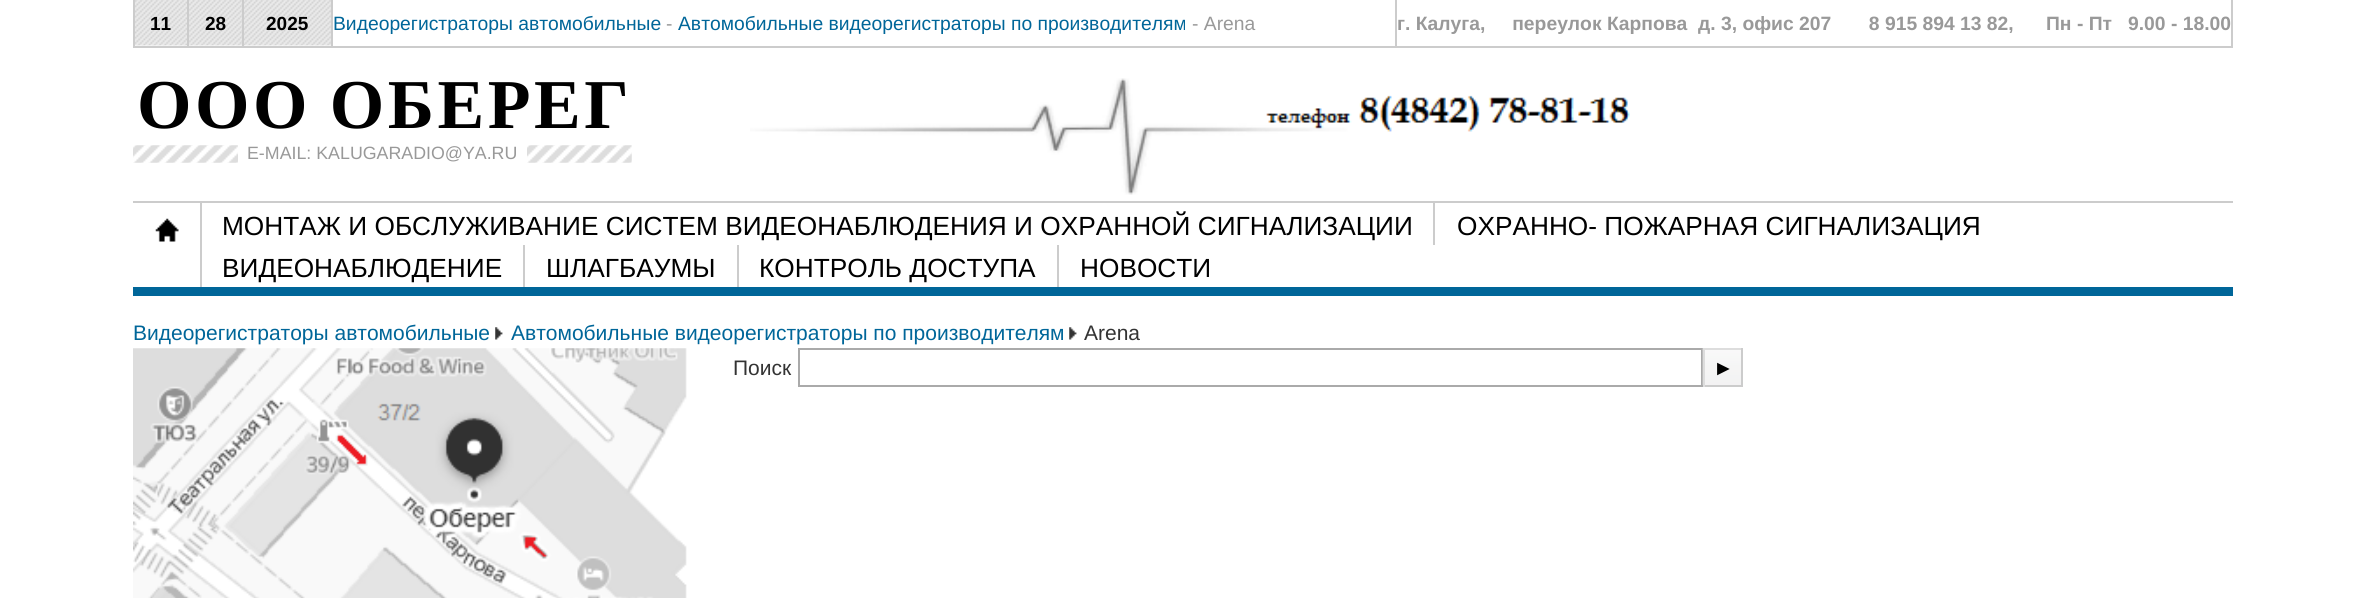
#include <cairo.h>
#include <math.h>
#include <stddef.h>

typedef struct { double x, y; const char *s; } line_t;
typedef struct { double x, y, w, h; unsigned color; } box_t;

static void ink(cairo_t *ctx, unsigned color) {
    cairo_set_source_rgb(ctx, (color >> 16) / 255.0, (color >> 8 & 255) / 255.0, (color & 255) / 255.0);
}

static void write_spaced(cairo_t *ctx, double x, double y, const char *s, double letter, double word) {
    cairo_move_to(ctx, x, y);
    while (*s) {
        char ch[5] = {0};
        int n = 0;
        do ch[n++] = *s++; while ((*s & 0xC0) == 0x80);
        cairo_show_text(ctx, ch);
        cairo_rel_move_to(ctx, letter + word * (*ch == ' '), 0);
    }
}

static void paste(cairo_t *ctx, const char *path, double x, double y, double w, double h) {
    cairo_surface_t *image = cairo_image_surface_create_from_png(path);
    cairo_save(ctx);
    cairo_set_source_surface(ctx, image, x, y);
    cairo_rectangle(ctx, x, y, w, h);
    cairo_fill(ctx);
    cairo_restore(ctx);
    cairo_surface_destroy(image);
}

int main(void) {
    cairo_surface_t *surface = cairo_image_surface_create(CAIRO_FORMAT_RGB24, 2366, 598);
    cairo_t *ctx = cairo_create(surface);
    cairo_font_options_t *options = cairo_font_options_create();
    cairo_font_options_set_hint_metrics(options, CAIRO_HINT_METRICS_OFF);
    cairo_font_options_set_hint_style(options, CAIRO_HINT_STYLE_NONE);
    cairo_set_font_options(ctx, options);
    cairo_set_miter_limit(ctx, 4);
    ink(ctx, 0xFFFFFF);
    cairo_paint(ctx);
    ink(ctx, 0xCCCCCC);
    cairo_rectangle(ctx, 133, 46, 2100, 2);
    cairo_fill(ctx);
    paste(ctx, "media/1.png", 135, 0, 196, 46);
    {
        static const box_t items[] = {
            {331, 0, 2, 46, 0xCCCCCC},
            {133, 0, 2, 46, 0xCCCCCC},
            {187, 0, 2, 46, 0xCCCCCC},
        };
        for (size_t i = 0; i < sizeof items / sizeof *items; i++) {
            ink(ctx, items[i].color);
            cairo_rectangle(ctx, items[i].x, items[i].y, items[i].w, items[i].h);
            cairo_fill(ctx);
        }
    }
    cairo_select_font_face(ctx, "Liberation Sans", CAIRO_FONT_SLANT_NORMAL, CAIRO_FONT_WEIGHT_BOLD);
    cairo_set_font_size(ctx, 19);
    ink(ctx, 0x000000);
    cairo_move_to(ctx, 150, 30);
    cairo_show_text(ctx, "11");
    ink(ctx, 0xCCCCCC);
    cairo_rectangle(ctx, 242, 0, 2, 46);
    cairo_fill(ctx);
    ink(ctx, 0x000000);
    cairo_move_to(ctx, 205, 30);
    cairo_show_text(ctx, "28");
    cairo_move_to(ctx, 266, 30);
    cairo_show_text(ctx, "2025");
    cairo_select_font_face(ctx, "Liberation Sans", CAIRO_FONT_SLANT_NORMAL, CAIRO_FONT_WEIGHT_NORMAL);
    cairo_set_font_size(ctx, 19.3);
    ink(ctx, 0x006699);
    cairo_move_to(ctx, 333, 30);
    cairo_show_text(ctx, "Видеорегистраторы автомобильные");
    ink(ctx, 0x999999);
    cairo_move_to(ctx, 666, 30);
    cairo_show_text(ctx, "-");
    ink(ctx, 0x006699);
    cairo_move_to(ctx, 678, 30);
    cairo_show_text(ctx, "Автомобильные видеорегистраторы по производителям");
    ink(ctx, 0x999999);
    cairo_move_to(ctx, 1192, 30);
    cairo_show_text(ctx, "- Arena");
    ink(ctx, 0xCCCCCC);
    cairo_rectangle(ctx, 2231, 0, 2, 46);
    cairo_fill(ctx);
    cairo_rectangle(ctx, 1395, 0, 2, 46);
    cairo_fill(ctx);
    cairo_select_font_face(ctx, "Liberation Sans", CAIRO_FONT_SLANT_NORMAL, CAIRO_FONT_WEIGHT_BOLD);
    ink(ctx, 0x999999);
    {
        static const line_t items[] = {
            {1397, 30, "г. Калуга,     переулок Карпова  д. 3, офис 207       8 915 894 13 82,"},
            {2046, 30, "Пн - Пт"},
            {2128, 30, "9.00 - 18.00"},
        };
        for (size_t i = 0; i < sizeof items / sizeof *items; i++) {
            cairo_move_to(ctx, items[i].x, items[i].y);
            cairo_show_text(ctx, items[i].s);
        }
    }
    cairo_select_font_face(ctx, "Liberation Serif", CAIRO_FONT_SLANT_NORMAL, CAIRO_FONT_WEIGHT_BOLD);
    cairo_set_font_size(ctx, 70);
    ink(ctx, 0x000000);
    write_spaced(ctx, 137, 128, "ООО ОБЕРЕГ", 3.5, -2);
    paste(ctx, "media/2.png", 133, 145, 499, 18);
    ink(ctx, 0xFFFFFF);
    cairo_rectangle(ctx, 238, 145, 289, 18);
    cairo_fill(ctx);
    cairo_select_font_face(ctx, "Liberation Sans", CAIRO_FONT_SLANT_NORMAL, CAIRO_FONT_WEIGHT_NORMAL);
    cairo_set_font_size(ctx, 17.8);
    ink(ctx, 0x999999);
    cairo_move_to(ctx, 247, 159);
    cairo_show_text(ctx, "E-MAIL: KALUGARADIO@YA.RU");
    paste(ctx, "media/3.png", 750, 78, 880, 117);
    ink(ctx, 0xCCCCCC);
    cairo_rectangle(ctx, 133, 201, 2100, 2);
    cairo_fill(ctx);
    ink(ctx, 0x006699);
    cairo_rectangle(ctx, 133, 287, 2100, 9);
    cairo_fill(ctx);
    paste(ctx, "media/4.png", 155, 218, 24, 24);
    ink(ctx, 0xCCCCCC);
    cairo_rectangle(ctx, 200, 203, 2, 84);
    cairo_fill(ctx);
    cairo_set_font_size(ctx, 26.25);
    ink(ctx, 0x000000);
    cairo_move_to(ctx, 222, 235);
    cairo_show_text(ctx, "МОНТАЖ И ОБСЛУЖИВАНИЕ СИСТЕМ ВИДЕОНАБЛЮДЕНИЯ И ОХРАННОЙ СИГНАЛИЗАЦИИ");
    ink(ctx, 0xCCCCCC);
    cairo_rectangle(ctx, 1433, 203, 2, 42);
    cairo_fill(ctx);
    ink(ctx, 0x000000);
    cairo_move_to(ctx, 1457, 235);
    cairo_show_text(ctx, "ОХРАННО- ПОЖАРНАЯ СИГНАЛИЗАЦИЯ");
    cairo_move_to(ctx, 222, 277);
    cairo_show_text(ctx, "ВИДЕОНАБЛЮДЕНИЕ");
    ink(ctx, 0xCCCCCC);
    cairo_rectangle(ctx, 523, 245, 2, 42);
    cairo_fill(ctx);
    ink(ctx, 0x000000);
    cairo_move_to(ctx, 546, 277);
    cairo_show_text(ctx, "ШЛАГБАУМЫ");
    ink(ctx, 0xCCCCCC);
    cairo_rectangle(ctx, 737, 245, 2, 42);
    cairo_fill(ctx);
    ink(ctx, 0x000000);
    cairo_move_to(ctx, 759, 277);
    cairo_show_text(ctx, "КОНТРОЛЬ ДОСТУПА");
    ink(ctx, 0xCCCCCC);
    cairo_rectangle(ctx, 1057, 245, 2, 42);
    cairo_fill(ctx);
    ink(ctx, 0x000000);
    cairo_move_to(ctx, 1080, 277);
    cairo_show_text(ctx, "НОВОСТИ");
    cairo_set_font_size(ctx, 21);
    ink(ctx, 0x006699);
    cairo_move_to(ctx, 133, 340);
    cairo_show_text(ctx, "Видеорегистраторы автомобильные");
    paste(ctx, "media/5.png", 495, 327, 8, 13);
    cairo_move_to(ctx, 511, 340);
    cairo_show_text(ctx, "Автомобильные видеорегистраторы по производителям");
    paste(ctx, "media/6.png", 1069, 327, 8, 13);
    ink(ctx, 0x333333);
    cairo_move_to(ctx, 1084, 340);
    cairo_show_text(ctx, "Arena");
    paste(ctx, "media/7.png", 133, 348, 554, 250);
    cairo_move_to(ctx, 733, 375);
    cairo_show_text(ctx, "Поиск");
    cairo_rectangle(ctx, 799, 349, 903, 37);
    ink(ctx, 0xAAAAAA);
    cairo_stroke(ctx);
    paste(ctx, "media/8.png", 1702, 348, 39, 37);
    {
        static const box_t items[] = {
            {1703, 348, 40, 2, 0xDDDDDD},
            {1741, 348, 2, 39, 0xCCCCCC},
            {1703, 385, 40, 2, 0xCCCCCC},
            {1703, 348, 2, 39, 0xDDDDDD},
        };
        for (size_t i = 0; i < sizeof items / sizeof *items; i++) {
            ink(ctx, items[i].color);
            cairo_rectangle(ctx, items[i].x, items[i].y, items[i].w, items[i].h);
            cairo_fill(ctx);
        }
    }
    cairo_select_font_face(ctx, "Liberation Sans", CAIRO_FONT_SLANT_NORMAL, CAIRO_FONT_WEIGHT_BOLD);
    ink(ctx, 0x000000);
    cairo_move_to(ctx, 1713, 375);
    cairo_show_text(ctx, "►");
    cairo_surface_write_to_png(surface, "image.png");
    cairo_font_options_destroy(options);
    cairo_destroy(ctx);
    cairo_surface_destroy(surface);
    return 0;
}
